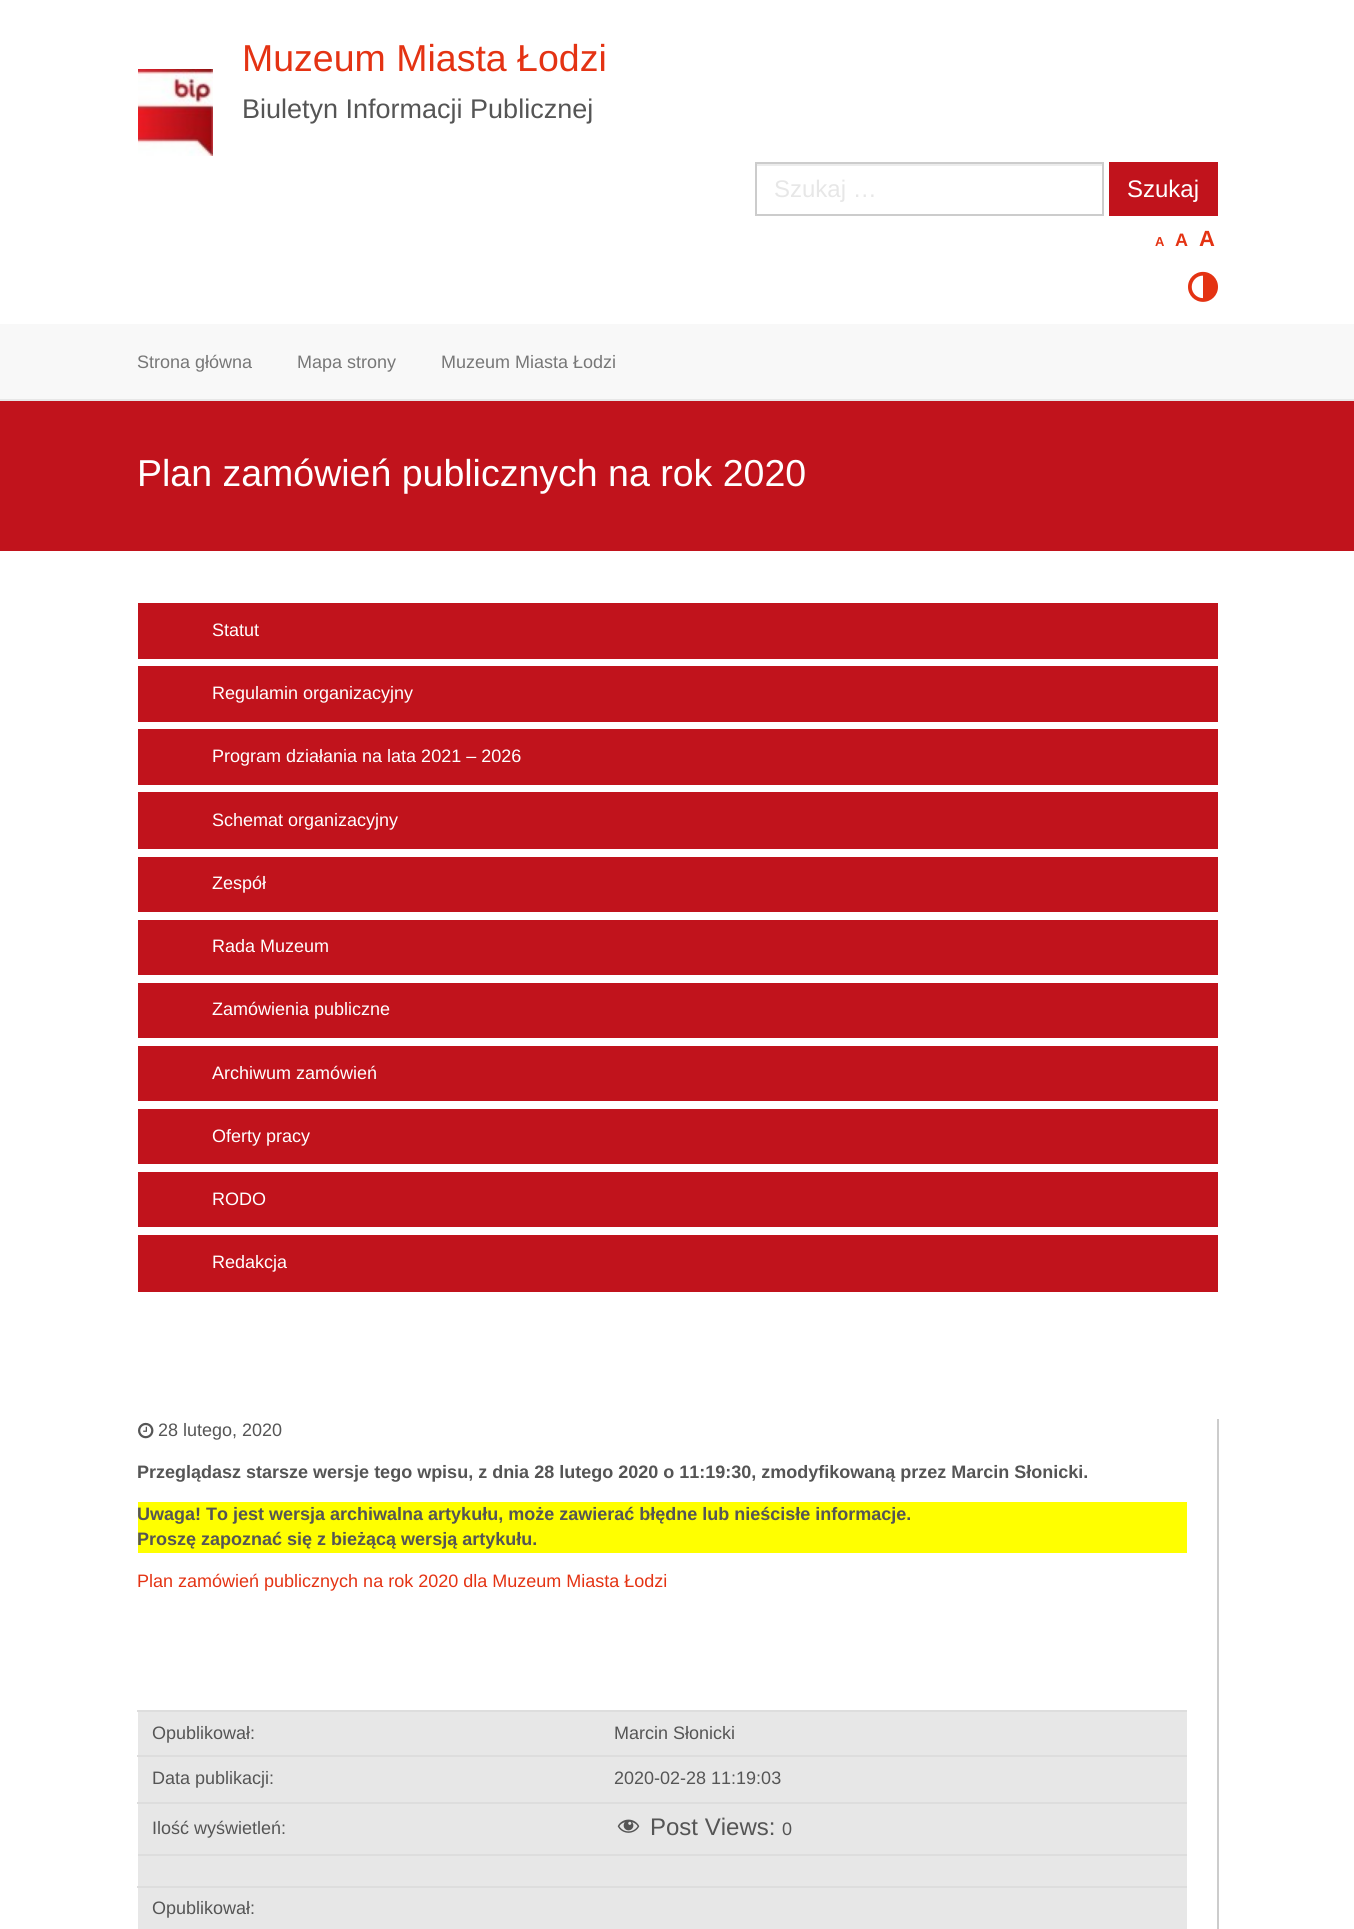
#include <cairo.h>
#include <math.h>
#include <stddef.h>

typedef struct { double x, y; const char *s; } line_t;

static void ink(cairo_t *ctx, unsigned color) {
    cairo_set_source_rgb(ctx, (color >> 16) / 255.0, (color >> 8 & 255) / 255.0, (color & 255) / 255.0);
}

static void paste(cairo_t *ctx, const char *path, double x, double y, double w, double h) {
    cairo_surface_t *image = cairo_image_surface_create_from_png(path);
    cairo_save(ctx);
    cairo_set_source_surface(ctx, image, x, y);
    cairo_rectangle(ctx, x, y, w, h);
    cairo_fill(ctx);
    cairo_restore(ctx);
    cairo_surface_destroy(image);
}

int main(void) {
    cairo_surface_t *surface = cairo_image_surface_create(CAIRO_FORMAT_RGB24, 1354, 1929);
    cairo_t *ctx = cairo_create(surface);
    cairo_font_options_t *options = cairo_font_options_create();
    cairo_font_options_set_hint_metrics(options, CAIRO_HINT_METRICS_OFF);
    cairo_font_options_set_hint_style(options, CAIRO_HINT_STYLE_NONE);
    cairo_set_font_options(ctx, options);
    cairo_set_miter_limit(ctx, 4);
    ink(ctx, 0xFFFFFF);
    cairo_paint(ctx);
    cairo_select_font_face(ctx, "Liberation Sans", CAIRO_FONT_SLANT_NORMAL, CAIRO_FONT_WEIGHT_NORMAL);
    cairo_set_font_size(ctx, 37.5);
    ink(ctx, 0xE43313);
    cairo_move_to(ctx, 242, 71);
    cairo_show_text(ctx, "Muzeum Miasta Łodzi");
    paste(ctx, "media/1.png", 138, 69, 75, 87);
    cairo_set_font_size(ctx, 27);
    ink(ctx, 0x555555);
    cairo_move_to(ctx, 242, 118);
    cairo_show_text(ctx, "Biuletyn Informacji Publicznej");
    ink(ctx, 0xECECEC);
    cairo_rectangle(ctx, 756, 164, 347, 2);
    cairo_fill(ctx);
    cairo_rectangle(ctx, 756, 163, 347, 52);
    ink(ctx, 0xCCCCCC);
    cairo_stroke(ctx);
    cairo_set_font_size(ctx, 24);
    ink(ctx, 0xE7E7E7);
    cairo_move_to(ctx, 774, 197);
    cairo_show_text(ctx, "Szukaj …");
    ink(ctx, 0xC1131C);
    cairo_rectangle(ctx, 1109, 162, 109, 54);
    cairo_fill(ctx);
    ink(ctx, 0xFFFFFF);
    cairo_move_to(ctx, 1127, 197);
    cairo_show_text(ctx, "Szukaj");
    cairo_select_font_face(ctx, "Liberation Sans", CAIRO_FONT_SLANT_NORMAL, CAIRO_FONT_WEIGHT_BOLD);
    cairo_set_font_size(ctx, 13);
    ink(ctx, 0xE43313);
    cairo_move_to(ctx, 1155, 246);
    cairo_show_text(ctx, "A");
    cairo_set_font_size(ctx, 18);
    cairo_move_to(ctx, 1175, 246);
    cairo_show_text(ctx, "A");
    cairo_set_font_size(ctx, 22);
    cairo_move_to(ctx, 1199, 246);
    cairo_show_text(ctx, "A");
    paste(ctx, "media/2.png", 1188, 271, 30, 31);
    ink(ctx, 0xF8F8F8);
    cairo_rectangle(ctx, 0, 324, 1354, 75);
    cairo_fill(ctx);
    ink(ctx, 0xE7E7E7);
    cairo_rectangle(ctx, 0, 399, 1354, 2);
    cairo_fill(ctx);
    cairo_select_font_face(ctx, "Liberation Sans", CAIRO_FONT_SLANT_NORMAL, CAIRO_FONT_WEIGHT_NORMAL);
    cairo_set_font_size(ctx, 18);
    ink(ctx, 0x777777);
    {
        static const line_t items[] = {
            {137, 368, "Strona główna"},
            {297, 368, "Mapa strony"},
            {441, 368, "Muzeum Miasta Łodzi"},
        };
        for (size_t i = 0; i < sizeof items / sizeof *items; i++) {
            cairo_move_to(ctx, items[i].x, items[i].y);
            cairo_show_text(ctx, items[i].s);
        }
    }
    ink(ctx, 0xC1131C);
    cairo_rectangle(ctx, 0, 401, 1354, 150);
    cairo_fill(ctx);
    cairo_set_font_size(ctx, 37.5);
    ink(ctx, 0xFFFFFF);
    cairo_move_to(ctx, 137, 486);
    cairo_show_text(ctx, "Plan zamówień publicznych na rok 2020");
    ink(ctx, 0xC1131C);
    cairo_rectangle(ctx, 138, 603, 1080, 56);
    cairo_fill(ctx);
    cairo_set_font_size(ctx, 18);
    ink(ctx, 0xFFFFFF);
    cairo_move_to(ctx, 212, 636);
    cairo_show_text(ctx, "Statut");
    ink(ctx, 0xC1131C);
    cairo_rectangle(ctx, 138, 666, 1080, 56);
    cairo_fill(ctx);
    ink(ctx, 0xFFFFFF);
    cairo_move_to(ctx, 212, 699);
    cairo_show_text(ctx, "Regulamin organizacyjny");
    ink(ctx, 0xC1131C);
    cairo_rectangle(ctx, 138, 729, 1080, 56);
    cairo_fill(ctx);
    ink(ctx, 0xFFFFFF);
    cairo_move_to(ctx, 212, 762);
    cairo_show_text(ctx, "Program działania na lata 2021 – 2026");
    ink(ctx, 0xC1131C);
    cairo_rectangle(ctx, 138, 792, 1080, 57);
    cairo_fill(ctx);
    ink(ctx, 0xFFFFFF);
    cairo_move_to(ctx, 212, 826);
    cairo_show_text(ctx, "Schemat organizacyjny");
    ink(ctx, 0xC1131C);
    cairo_rectangle(ctx, 138, 857, 1080, 55);
    cairo_fill(ctx);
    ink(ctx, 0xFFFFFF);
    cairo_move_to(ctx, 212, 889);
    cairo_show_text(ctx, "Zespół");
    ink(ctx, 0xC1131C);
    cairo_rectangle(ctx, 138, 920, 1080, 55);
    cairo_fill(ctx);
    ink(ctx, 0xFFFFFF);
    cairo_move_to(ctx, 212, 952);
    cairo_show_text(ctx, "Rada Muzeum");
    ink(ctx, 0xC1131C);
    cairo_rectangle(ctx, 138, 983, 1080, 55);
    cairo_fill(ctx);
    ink(ctx, 0xFFFFFF);
    cairo_move_to(ctx, 212, 1015);
    cairo_show_text(ctx, "Zamówienia publiczne");
    ink(ctx, 0xC1131C);
    cairo_rectangle(ctx, 138, 1046, 1080, 55);
    cairo_fill(ctx);
    ink(ctx, 0xFFFFFF);
    cairo_move_to(ctx, 212, 1079);
    cairo_show_text(ctx, "Archiwum zamówień");
    ink(ctx, 0xC1131C);
    cairo_rectangle(ctx, 138, 1109, 1080, 55);
    cairo_fill(ctx);
    ink(ctx, 0xFFFFFF);
    cairo_move_to(ctx, 212, 1142);
    cairo_show_text(ctx, "Oferty pracy");
    ink(ctx, 0xC1131C);
    cairo_rectangle(ctx, 138, 1172, 1080, 55);
    cairo_fill(ctx);
    ink(ctx, 0xFFFFFF);
    cairo_move_to(ctx, 212, 1205);
    cairo_show_text(ctx, "RODO");
    ink(ctx, 0xC1131C);
    cairo_rectangle(ctx, 138, 1235, 1080, 57);
    cairo_fill(ctx);
    ink(ctx, 0xFFFFFF);
    cairo_move_to(ctx, 212, 1268);
    cairo_show_text(ctx, "Redakcja");
    ink(ctx, 0xCCCCCC);
    cairo_rectangle(ctx, 1217, 1419, 2, 510);
    cairo_fill(ctx);
    paste(ctx, "media/3.png", 138, 1422, 16, 17);
    ink(ctx, 0x555555);
    cairo_move_to(ctx, 158, 1436);
    cairo_show_text(ctx, "28 lutego, 2020");
    cairo_select_font_face(ctx, "Liberation Sans", CAIRO_FONT_SLANT_NORMAL, CAIRO_FONT_WEIGHT_BOLD);
    cairo_move_to(ctx, 137, 1478);
    cairo_show_text(ctx, "Przeglądasz starsze wersje tego wpisu, z dnia 28 lutego 2020 o 11:19:30, zmodyfikowaną przez Marcin Słonicki.");
    ink(ctx, 0xFFFF00);
    cairo_rectangle(ctx, 138, 1502, 1049, 51);
    cairo_fill(ctx);
    ink(ctx, 0x555555);
    cairo_move_to(ctx, 137, 1520);
    cairo_show_text(ctx, "Uwaga! To jest wersja archiwalna artykułu, może zawierać błędne lub nieścisłe informacje.");
    cairo_move_to(ctx, 137, 1545);
    cairo_show_text(ctx, "Proszę zapoznać się z bieżącą wersją artykułu.");
    cairo_select_font_face(ctx, "Liberation Sans", CAIRO_FONT_SLANT_NORMAL, CAIRO_FONT_WEIGHT_NORMAL);
    ink(ctx, 0xE43313);
    cairo_move_to(ctx, 137, 1587);
    cairo_show_text(ctx, "Plan zamówień publicznych na rok 2020 dla Muzeum Miasta Łodzi");
    ink(ctx, 0xE7E7E7);
    cairo_rectangle(ctx, 138, 1712, 1049, 217);
    cairo_fill(ctx);
    ink(ctx, 0xDDDDDD);
    cairo_rectangle(ctx, 138, 1854, 1049, 2);
    cairo_fill(ctx);
    ink(ctx, 0x555555);
    cairo_move_to(ctx, 152, 1739);
    cairo_show_text(ctx, "Opublikował:");
    ink(ctx, 0xDDDDDD);
    cairo_rectangle(ctx, 137, 1710, 1050, 2);
    cairo_fill(ctx);
    ink(ctx, 0x555555);
    cairo_move_to(ctx, 614, 1739);
    cairo_show_text(ctx, "Marcin Słonicki");
    cairo_move_to(ctx, 152, 1784);
    cairo_show_text(ctx, "Data publikacji:");
    ink(ctx, 0xDDDDDD);
    cairo_rectangle(ctx, 137, 1755, 1050, 2);
    cairo_fill(ctx);
    ink(ctx, 0x555555);
    cairo_move_to(ctx, 614, 1784);
    cairo_show_text(ctx, "2020-02-28 11:19:03");
    cairo_move_to(ctx, 152, 1834);
    cairo_show_text(ctx, "Ilość wyświetleń:");
    ink(ctx, 0xDDDDDD);
    cairo_rectangle(ctx, 137, 1802, 1050, 2);
    cairo_fill(ctx);
    paste(ctx, "media/4.png", 617, 1819, 23, 14);
    cairo_set_font_size(ctx, 24);
    ink(ctx, 0x555555);
    cairo_move_to(ctx, 650, 1835);
    cairo_show_text(ctx, "Post Views:");
    cairo_set_font_size(ctx, 18);
    cairo_move_to(ctx, 782, 1835);
    cairo_show_text(ctx, "0");
    ink(ctx, 0xDDDDDD);
    cairo_rectangle(ctx, 137, 1886, 1050, 2);
    cairo_fill(ctx);
    ink(ctx, 0x555555);
    cairo_move_to(ctx, 152, 1914);
    cairo_show_text(ctx, "Opublikował:");
    cairo_surface_write_to_png(surface, "image.png");
    cairo_font_options_destroy(options);
    cairo_destroy(ctx);
    cairo_surface_destroy(surface);
    return 0;
}
